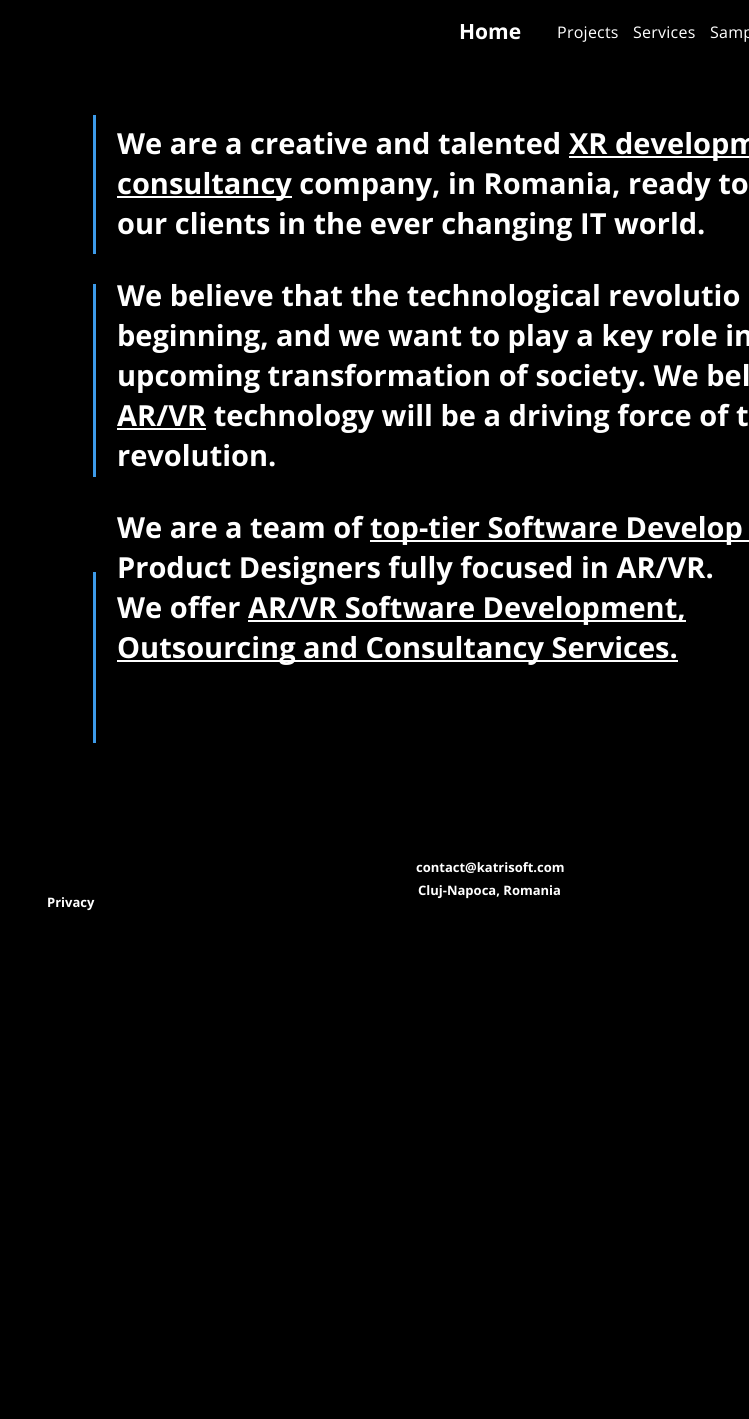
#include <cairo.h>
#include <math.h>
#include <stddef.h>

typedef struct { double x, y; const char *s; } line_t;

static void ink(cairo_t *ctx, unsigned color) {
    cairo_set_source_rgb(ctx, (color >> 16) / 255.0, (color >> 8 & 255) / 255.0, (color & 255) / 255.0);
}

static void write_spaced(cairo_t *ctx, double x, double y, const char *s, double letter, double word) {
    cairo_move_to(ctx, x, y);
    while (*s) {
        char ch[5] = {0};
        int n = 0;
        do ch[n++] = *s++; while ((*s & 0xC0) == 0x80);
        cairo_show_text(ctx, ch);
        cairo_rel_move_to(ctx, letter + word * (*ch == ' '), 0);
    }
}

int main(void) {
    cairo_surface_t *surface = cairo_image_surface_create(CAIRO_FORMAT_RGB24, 749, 1419);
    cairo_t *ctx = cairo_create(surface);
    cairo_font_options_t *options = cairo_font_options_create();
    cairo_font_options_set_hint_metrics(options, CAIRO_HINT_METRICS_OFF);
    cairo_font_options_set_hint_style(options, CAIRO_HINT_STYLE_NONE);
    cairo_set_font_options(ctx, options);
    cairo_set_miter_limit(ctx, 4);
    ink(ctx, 0x000000);
    cairo_paint(ctx);
    cairo_select_font_face(ctx, "Open Sans", CAIRO_FONT_SLANT_NORMAL, CAIRO_FONT_WEIGHT_BOLD);
    cairo_set_font_size(ctx, 21);
    ink(ctx, 0xFFFFFF);
    cairo_move_to(ctx, 459, 39);
    cairo_show_text(ctx, "Home");
    cairo_select_font_face(ctx, "Open Sans", CAIRO_FONT_SLANT_NORMAL, CAIRO_FONT_WEIGHT_NORMAL);
    cairo_set_font_size(ctx, 16);
    {
        static const line_t items[] = {
            {557, 38, "Projects"},
            {633, 38, "Services"},
            {710, 38, "Samp"},
        };
        for (size_t i = 0; i < sizeof items / sizeof *items; i++) {
            write_spaced(ctx, items[i].x, items[i].y, items[i].s, 0.25, 0);
        }
    }
    ink(ctx, 0x3D9BE9);
    cairo_rectangle(ctx, 93, 115, 3, 139);
    cairo_fill(ctx);
    cairo_select_font_face(ctx, "Open Sans", CAIRO_FONT_SLANT_NORMAL, CAIRO_FONT_WEIGHT_BOLD);
    cairo_set_font_size(ctx, 29);
    ink(ctx, 0xFFFFFF);
    cairo_move_to(ctx, 117, 154);
    cairo_show_text(ctx, "We are a creative and talented");
    cairo_rectangle(ctx, 569, 156, 180, 2);
    cairo_fill(ctx);
    cairo_move_to(ctx, 569, 154);
    cairo_show_text(ctx, "XR developm");
    cairo_rectangle(ctx, 117, 196, 175, 2);
    cairo_fill(ctx);
    {
        static const line_t items[] = {
            {117, 194, "consultancy company, in Romania, ready to"},
            {117, 234, "our clients in the ever changing IT world."},
            {117, 306, "We believe that the technological revolutio"},
            {117, 346, "beginning, and we want to play a key role in"},
            {117, 386, "upcoming transformation of society. We bel"},
        };
        for (size_t i = 0; i < sizeof items / sizeof *items; i++) {
            cairo_move_to(ctx, items[i].x, items[i].y);
            cairo_show_text(ctx, items[i].s);
        }
    }
    cairo_rectangle(ctx, 117, 428, 89, 2);
    cairo_fill(ctx);
    {
        static const line_t items[] = {
            {117, 426, "AR/VR technology will be a driving force of t"},
            {117, 466, "revolution."},
            {117, 538, "We are a team of"},
        };
        for (size_t i = 0; i < sizeof items / sizeof *items; i++) {
            cairo_move_to(ctx, items[i].x, items[i].y);
            cairo_show_text(ctx, items[i].s);
        }
    }
    cairo_rectangle(ctx, 370, 540, 379, 2);
    cairo_fill(ctx);
    {
        static const line_t items[] = {
            {370, 538, "top-tier Software Develop"},
            {117, 578, "Product Designers fully focused in AR/VR."},
            {117, 618, "We offer"},
        };
        for (size_t i = 0; i < sizeof items / sizeof *items; i++) {
            cairo_move_to(ctx, items[i].x, items[i].y);
            cairo_show_text(ctx, items[i].s);
        }
    }
    cairo_rectangle(ctx, 248, 620, 438, 2);
    cairo_fill(ctx);
    cairo_move_to(ctx, 248, 618);
    cairo_show_text(ctx, "AR/VR Software Development,");
    cairo_rectangle(ctx, 117, 660, 561, 2);
    cairo_fill(ctx);
    cairo_move_to(ctx, 117, 658);
    cairo_show_text(ctx, "Outsourcing and Consultancy Services.");
    ink(ctx, 0x3D9BE9);
    cairo_rectangle(ctx, 93, 284, 3, 193);
    cairo_fill(ctx);
    cairo_rectangle(ctx, 93, 572, 3, 171);
    cairo_fill(ctx);
    cairo_set_font_size(ctx, 13);
    ink(ctx, 0xFFFFFF);
    {
        static const line_t items[] = {
            {416, 872, "contact@katrisoft.com"},
            {418, 895, "Cluj-Napoca, Romania"},
            {47, 907, "Privacy"},
        };
        for (size_t i = 0; i < sizeof items / sizeof *items; i++) {
            cairo_move_to(ctx, items[i].x, items[i].y);
            cairo_show_text(ctx, items[i].s);
        }
    }
    cairo_surface_write_to_png(surface, "image.png");
    cairo_font_options_destroy(options);
    cairo_destroy(ctx);
    cairo_surface_destroy(surface);
    return 0;
}
